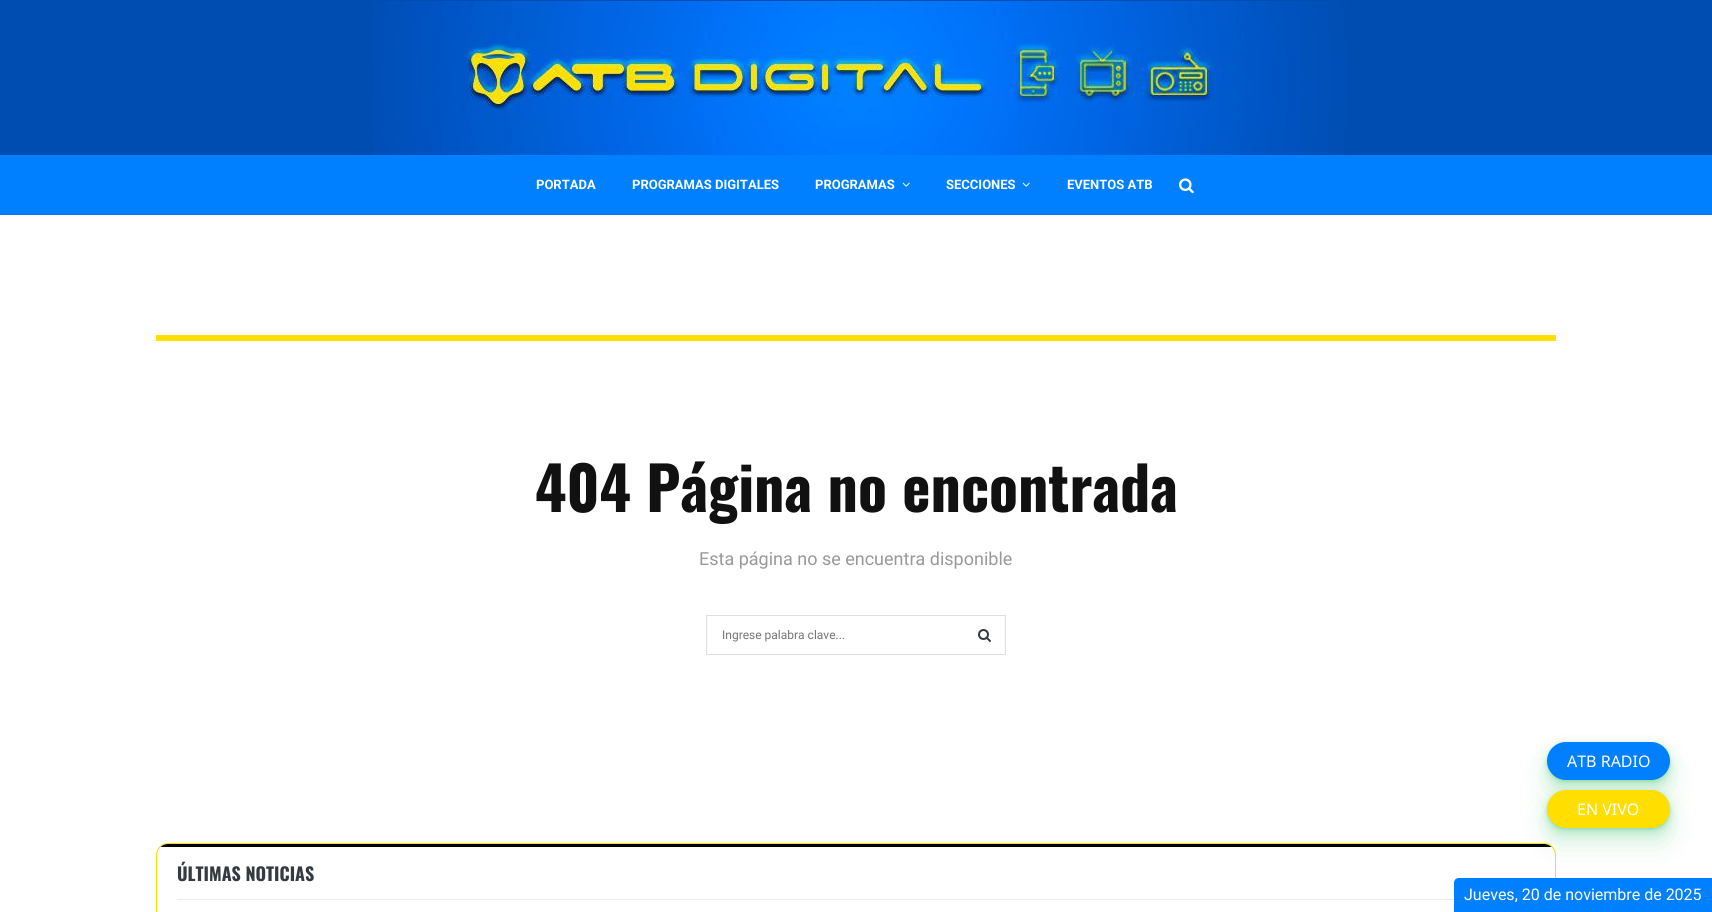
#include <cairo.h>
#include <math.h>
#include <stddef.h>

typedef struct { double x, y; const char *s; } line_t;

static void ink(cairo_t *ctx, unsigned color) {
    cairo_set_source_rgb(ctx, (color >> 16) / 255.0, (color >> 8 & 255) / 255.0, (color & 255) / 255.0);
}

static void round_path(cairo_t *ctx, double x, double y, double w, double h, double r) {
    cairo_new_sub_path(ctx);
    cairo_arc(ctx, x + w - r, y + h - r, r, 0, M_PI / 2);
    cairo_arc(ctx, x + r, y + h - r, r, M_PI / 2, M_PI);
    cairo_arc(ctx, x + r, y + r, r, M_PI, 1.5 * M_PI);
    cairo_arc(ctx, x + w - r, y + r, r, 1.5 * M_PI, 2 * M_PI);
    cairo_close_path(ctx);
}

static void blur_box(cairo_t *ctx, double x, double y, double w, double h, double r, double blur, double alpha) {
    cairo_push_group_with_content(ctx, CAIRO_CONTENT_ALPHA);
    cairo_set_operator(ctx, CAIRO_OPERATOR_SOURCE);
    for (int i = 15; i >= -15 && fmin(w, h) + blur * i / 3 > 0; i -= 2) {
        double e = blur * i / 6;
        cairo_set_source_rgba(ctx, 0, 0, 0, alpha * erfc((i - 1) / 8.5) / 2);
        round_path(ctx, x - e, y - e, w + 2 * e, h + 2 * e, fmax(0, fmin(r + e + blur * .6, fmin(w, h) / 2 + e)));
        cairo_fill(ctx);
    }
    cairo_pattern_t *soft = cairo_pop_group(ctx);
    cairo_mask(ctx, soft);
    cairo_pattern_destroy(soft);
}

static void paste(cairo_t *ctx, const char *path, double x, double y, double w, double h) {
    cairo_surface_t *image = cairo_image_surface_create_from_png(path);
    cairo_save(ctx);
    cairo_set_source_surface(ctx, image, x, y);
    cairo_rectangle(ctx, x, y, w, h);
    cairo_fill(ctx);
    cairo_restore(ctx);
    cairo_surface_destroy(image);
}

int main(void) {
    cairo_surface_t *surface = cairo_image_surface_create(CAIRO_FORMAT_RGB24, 1712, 912);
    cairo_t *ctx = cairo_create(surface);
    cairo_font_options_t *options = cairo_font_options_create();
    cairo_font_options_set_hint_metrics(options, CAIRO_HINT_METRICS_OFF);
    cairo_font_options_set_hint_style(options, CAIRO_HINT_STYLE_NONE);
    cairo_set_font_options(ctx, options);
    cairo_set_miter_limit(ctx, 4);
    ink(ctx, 0xFFFFFF);
    cairo_paint(ctx);
    ink(ctx, 0x004DB1);
    cairo_rectangle(ctx, 0, 0, 1712, 155);
    cairo_fill(ctx);
    paste(ctx, "media/1.png", 372, 1, 976, 154);
    ink(ctx, 0x0080FF);
    cairo_rectangle(ctx, 0, 155, 1712, 60);
    cairo_fill(ctx);
    cairo_select_font_face(ctx, "Roboto", CAIRO_FONT_SLANT_NORMAL, CAIRO_FONT_WEIGHT_BOLD);
    cairo_set_font_size(ctx, 13);
    ink(ctx, 0xFFFFFF);
    {
        static const line_t items[] = {
            {536, 189, "PORTADA"},
            {632, 189, "PROGRAMAS DIGITALES"},
            {815, 189, "PROGRAMAS"},
        };
        for (size_t i = 0; i < sizeof items / sizeof *items; i++) {
            cairo_move_to(ctx, items[i].x, items[i].y);
            cairo_show_text(ctx, items[i].s);
        }
    }
    paste(ctx, "media/2.png", 902, 182, 8, 5);
    cairo_move_to(ctx, 946, 189);
    cairo_show_text(ctx, "SECCIONES");
    paste(ctx, "media/2.png", 1022, 182, 8, 5);
    cairo_move_to(ctx, 1067, 189);
    cairo_show_text(ctx, "EVENTOS ATB");
    paste(ctx, "media/3.png", 1179, 178, 15, 16);
    ink(ctx, 0xFFDE00);
    cairo_rectangle(ctx, 156, 335, 1400, 6);
    cairo_fill(ctx);
    cairo_select_font_face(ctx, "Oswald", CAIRO_FONT_SLANT_NORMAL, CAIRO_FONT_WEIGHT_BOLD);
    cairo_set_font_size(ctx, 60);
    ink(ctx, 0x111111);
    cairo_move_to(ctx, 535, 512);
    cairo_show_text(ctx, "404 Página no encontrada");
    cairo_select_font_face(ctx, "Roboto", CAIRO_FONT_SLANT_NORMAL, CAIRO_FONT_WEIGHT_NORMAL);
    cairo_set_font_size(ctx, 18);
    ink(ctx, 0x999999);
    cairo_move_to(ctx, 699, 565);
    cairo_show_text(ctx, "Esta página no se encuentra disponible");
    cairo_rectangle(ctx, 706.5, 615.5, 299, 39);
    ink(ctx, 0xDEDEDE);
    cairo_set_line_width(ctx, 1);
    cairo_stroke(ctx);
    cairo_set_font_size(ctx, 12);
    ink(ctx, 0x757575);
    cairo_move_to(ctx, 722, 639);
    cairo_show_text(ctx, "Ingrese palabra clave...");
    paste(ctx, "media/4.png", 978, 629, 13, 13);
    round_path(ctx, 156.5, 843.5, 1399, 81, 11.5);
    ink(ctx, 0xFFDE00);
    cairo_stroke(ctx);
    ink(ctx, 0xECECEC);
    cairo_rectangle(ctx, 177, 899, 1277, 1);
    cairo_fill(ctx);
    cairo_save(ctx);
    round_path(ctx, 157, 844, 1398, 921, 11);
    cairo_clip(ctx);
    ink(ctx, 0x000000);
    cairo_rectangle(ctx, 157, 844, 1398, 3);
    cairo_fill(ctx);
    cairo_restore(ctx);
    cairo_select_font_face(ctx, "Oswald", CAIRO_FONT_SLANT_NORMAL, CAIRO_FONT_WEIGHT_BOLD);
    cairo_set_font_size(ctx, 18);
    ink(ctx, 0x343A40);
    cairo_move_to(ctx, 177, 881);
    cairo_show_text(ctx, "ÚLTIMAS NOTICIAS");
    ink(ctx, 0x2CBB63);
    blur_box(ctx, 1547, 758, 123, 38, 19, 16, 0.15);
    blur_box(ctx, 1547, 750, 123, 38, 19, 8, 0.15);
    blur_box(ctx, 1547, 746, 123, 38, 19, 4, 0.15);
    blur_box(ctx, 1547, 744, 123, 38, 19, 2, 0.15);
    blur_box(ctx, 1547, 743, 123, 38, 19, 1, 0.15);
    ink(ctx, 0x0080FF);
    round_path(ctx, 1547, 742, 123, 38, 19);
    cairo_fill(ctx);
    cairo_select_font_face(ctx, "Noto Sans", CAIRO_FONT_SLANT_NORMAL, CAIRO_FONT_WEIGHT_NORMAL);
    cairo_set_font_size(ctx, 16);
    ink(ctx, 0xFFFFFF);
    cairo_move_to(ctx, 1567, 767);
    cairo_show_text(ctx, "ATB RADIO");
    ink(ctx, 0x2CBB63);
    blur_box(ctx, 1547, 806, 123, 38, 19, 16, 0.15);
    blur_box(ctx, 1547, 798, 123, 38, 19, 8, 0.15);
    blur_box(ctx, 1547, 794, 123, 38, 19, 4, 0.15);
    blur_box(ctx, 1547, 792, 123, 38, 19, 2, 0.15);
    blur_box(ctx, 1547, 791, 123, 38, 19, 1, 0.15);
    ink(ctx, 0xFFDE00);
    round_path(ctx, 1547, 790, 123, 38, 19);
    cairo_fill(ctx);
    ink(ctx, 0xFFFFFF);
    cairo_move_to(ctx, 1577, 815);
    cairo_show_text(ctx, "EN VIVO");
    ink(ctx, 0x0080FF);
    cairo_new_path(ctx);
    cairo_move_to(ctx, 1459, 878);
    cairo_line_to(ctx, 1712, 878);
    cairo_line_to(ctx, 1712, 912);
    cairo_line_to(ctx, 1454, 912);
    cairo_line_to(ctx, 1454, 883);
    cairo_curve_to(ctx, 1454, 880, 1456, 878, 1459, 878);
    cairo_close_path(ctx);
    cairo_fill(ctx);
    cairo_select_font_face(ctx, "Roboto", CAIRO_FONT_SLANT_NORMAL, CAIRO_FONT_WEIGHT_NORMAL);
    ink(ctx, 0xFFFFFF);
    cairo_move_to(ctx, 1464, 900);
    cairo_show_text(ctx, "Jueves, 20 de noviembre de 2025");
    cairo_surface_write_to_png(surface, "image.png");
    cairo_font_options_destroy(options);
    cairo_destroy(ctx);
    cairo_surface_destroy(surface);
    return 0;
}
